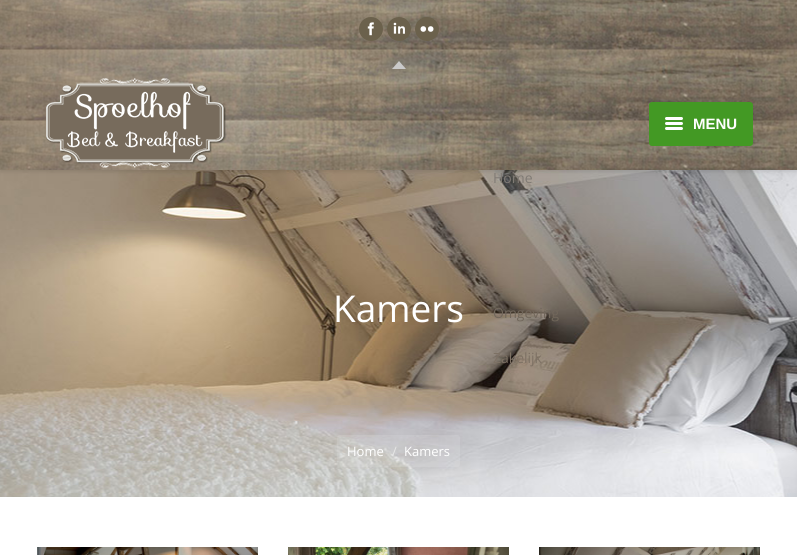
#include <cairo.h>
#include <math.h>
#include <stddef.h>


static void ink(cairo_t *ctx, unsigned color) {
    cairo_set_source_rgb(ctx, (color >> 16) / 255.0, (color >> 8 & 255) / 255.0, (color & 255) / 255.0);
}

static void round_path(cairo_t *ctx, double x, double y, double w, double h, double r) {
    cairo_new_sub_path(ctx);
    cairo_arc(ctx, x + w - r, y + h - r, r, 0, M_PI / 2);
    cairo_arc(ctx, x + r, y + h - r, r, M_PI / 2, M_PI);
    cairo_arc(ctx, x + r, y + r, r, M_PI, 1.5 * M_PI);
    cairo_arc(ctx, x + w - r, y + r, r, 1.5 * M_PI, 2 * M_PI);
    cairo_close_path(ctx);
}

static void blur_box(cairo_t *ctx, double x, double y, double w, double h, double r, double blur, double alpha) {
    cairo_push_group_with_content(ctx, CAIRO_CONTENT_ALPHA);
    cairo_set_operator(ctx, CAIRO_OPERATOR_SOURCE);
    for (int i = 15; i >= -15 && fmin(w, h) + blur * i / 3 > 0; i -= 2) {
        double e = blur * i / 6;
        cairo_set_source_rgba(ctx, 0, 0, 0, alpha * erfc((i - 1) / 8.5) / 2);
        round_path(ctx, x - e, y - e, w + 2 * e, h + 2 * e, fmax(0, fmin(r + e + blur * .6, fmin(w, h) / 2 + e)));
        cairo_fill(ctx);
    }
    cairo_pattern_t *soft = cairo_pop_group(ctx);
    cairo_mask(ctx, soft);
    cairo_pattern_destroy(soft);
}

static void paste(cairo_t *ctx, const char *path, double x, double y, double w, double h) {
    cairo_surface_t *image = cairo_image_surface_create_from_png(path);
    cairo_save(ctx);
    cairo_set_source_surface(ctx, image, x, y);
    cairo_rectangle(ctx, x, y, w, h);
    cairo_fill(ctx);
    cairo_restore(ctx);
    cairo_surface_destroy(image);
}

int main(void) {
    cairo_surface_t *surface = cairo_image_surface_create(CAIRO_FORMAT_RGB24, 797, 555);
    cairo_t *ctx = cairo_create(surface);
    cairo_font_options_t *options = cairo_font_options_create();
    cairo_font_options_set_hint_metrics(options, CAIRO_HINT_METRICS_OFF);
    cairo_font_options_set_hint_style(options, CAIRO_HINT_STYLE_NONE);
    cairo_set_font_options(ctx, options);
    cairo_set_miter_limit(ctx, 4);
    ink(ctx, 0xFFFFFF);
    cairo_paint(ctx);
    paste(ctx, "media/1.png", 0, 170, 797, 327);
    cairo_select_font_face(ctx, "Open Sans", CAIRO_FONT_SLANT_NORMAL, CAIRO_FONT_WEIGHT_NORMAL);
    cairo_set_font_size(ctx, 37);
    ink(ctx, 0xFFFFFF);
    cairo_move_to(ctx, 333, 322);
    cairo_show_text(ctx, "Kamers");
    cairo_set_source_rgba(ctx, 1, 1, 1, 0.12);
    round_path(ctx, 337, 435, 123, 32, 3);
    cairo_fill(ctx);
    cairo_set_font_size(ctx, 13);
    ink(ctx, 0xFFFFFF);
    cairo_move_to(ctx, 347, 456);
    cairo_show_text(ctx, "Home");
    ink(ctx, 0xE6E6E6);
    cairo_move_to(ctx, 392, 456);
    cairo_show_text(ctx, "/");
    ink(ctx, 0xFFFFFF);
    cairo_move_to(ctx, 404, 456);
    cairo_show_text(ctx, "Kamers");
    ink(ctx, 0x000000);
    blur_box(ctx, 0, 0, 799, 172, 0, 2, 0.1);
    paste(ctx, "media/2.png", 0, 0, 797, 170);
    ink(ctx, 0x6B614C);
    cairo_arc(ctx, 371, 29, 12, 0, 2 * M_PI);
    cairo_fill(ctx);
    paste(ctx, "media/3.png", 367, 22, 7, 14);
    cairo_arc(ctx, 399, 29, 12, 0, 2 * M_PI);
    cairo_fill(ctx);
    paste(ctx, "media/4.png", 393, 22, 12, 12);
    cairo_arc(ctx, 427, 29, 12, 0, 2 * M_PI);
    cairo_fill(ctx);
    ink(ctx, 0xFFFFFF);
    cairo_arc(ctx, 423.3, 29, 2.8, 0, 2 * M_PI);
    cairo_fill(ctx);
    cairo_arc(ctx, 430.7, 29, 2.8, 0, 2 * M_PI);
    cairo_fill(ctx);
    ink(ctx, 0xC9C9C9);
    cairo_new_path(ctx);
    cairo_move_to(ctx, 406, 69);
    cairo_line_to(ctx, 392, 69);
    cairo_line_to(ctx, 399, 61);
    cairo_close_path(ctx);
    cairo_fill(ctx);
    paste(ctx, "media/5.png", 46, 78, 180, 90);
    ink(ctx, 0x439924);
    round_path(ctx, 649, 102, 104, 44, 3);
    cairo_fill(ctx);
    ink(ctx, 0xFFFFFF);
    round_path(ctx, 665, 122, 18, 3, 1.5);
    cairo_fill(ctx);
    round_path(ctx, 665, 117, 18, 3, 1.5);
    cairo_fill(ctx);
    round_path(ctx, 665, 127, 18, 3, 1.5);
    cairo_fill(ctx);
    cairo_select_font_face(ctx, "Liberation Sans", CAIRO_FONT_SLANT_NORMAL, CAIRO_FONT_WEIGHT_BOLD);
    cairo_set_font_size(ctx, 15);
    cairo_move_to(ctx, 693, 129);
    cairo_show_text(ctx, "MENU");
    cairo_select_font_face(ctx, "Open Sans", CAIRO_FONT_SLANT_NORMAL, CAIRO_FONT_WEIGHT_NORMAL);
    cairo_set_font_size(ctx, 14);
    ink(ctx, 0x7F7A74);
    cairo_move_to(ctx, 493, 183);
    cairo_show_text(ctx, "Home");
    ink(ctx, 0x71675B);
    cairo_move_to(ctx, 493, 318);
    cairo_show_text(ctx, "Omgeving");
    ink(ctx, 0x7D7164);
    cairo_move_to(ctx, 493, 363);
    cairo_show_text(ctx, "Zakelijk");
    paste(ctx, "media/6.png", 37, 547, 221, 8);
    paste(ctx, "media/7.png", 288, 547, 221, 8);
    paste(ctx, "media/8.png", 539, 547, 221, 8);
    cairo_surface_write_to_png(surface, "image.png");
    cairo_font_options_destroy(options);
    cairo_destroy(ctx);
    cairo_surface_destroy(surface);
    return 0;
}
